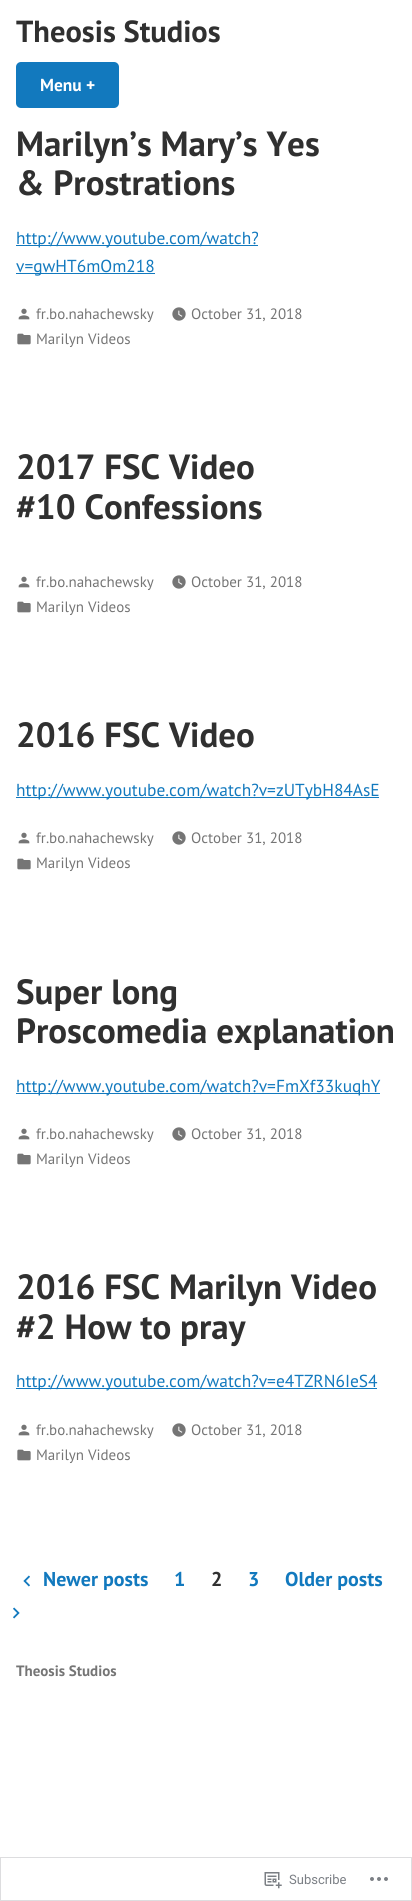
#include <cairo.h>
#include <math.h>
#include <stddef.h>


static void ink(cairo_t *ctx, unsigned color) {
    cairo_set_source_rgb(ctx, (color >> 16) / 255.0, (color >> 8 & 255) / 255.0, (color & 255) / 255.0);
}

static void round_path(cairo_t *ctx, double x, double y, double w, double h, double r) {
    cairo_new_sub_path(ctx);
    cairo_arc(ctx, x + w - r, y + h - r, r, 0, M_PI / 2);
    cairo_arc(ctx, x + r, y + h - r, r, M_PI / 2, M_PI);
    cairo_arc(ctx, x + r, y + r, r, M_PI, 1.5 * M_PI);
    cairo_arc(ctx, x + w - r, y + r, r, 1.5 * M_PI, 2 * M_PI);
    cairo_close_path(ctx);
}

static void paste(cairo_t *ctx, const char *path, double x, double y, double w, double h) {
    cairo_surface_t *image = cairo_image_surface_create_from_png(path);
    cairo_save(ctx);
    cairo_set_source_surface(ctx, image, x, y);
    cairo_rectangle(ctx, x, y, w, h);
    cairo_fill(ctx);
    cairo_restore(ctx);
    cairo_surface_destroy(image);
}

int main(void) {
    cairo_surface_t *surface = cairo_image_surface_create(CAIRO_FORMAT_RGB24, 412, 1901);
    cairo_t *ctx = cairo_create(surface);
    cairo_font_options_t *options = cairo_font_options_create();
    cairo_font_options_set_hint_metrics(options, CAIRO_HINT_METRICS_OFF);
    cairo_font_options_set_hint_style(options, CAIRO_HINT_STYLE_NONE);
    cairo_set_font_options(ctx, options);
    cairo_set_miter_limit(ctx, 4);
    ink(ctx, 0xFFFFFF);
    cairo_paint(ctx);
    cairo_select_font_face(ctx, "PT Sans", CAIRO_FONT_SLANT_NORMAL, CAIRO_FONT_WEIGHT_BOLD);
    cairo_set_font_size(ctx, 30.5);
    ink(ctx, 0x303030);
    cairo_move_to(ctx, 16, 42);
    cairo_show_text(ctx, "Theosis Studios");
    ink(ctx, 0x1279BE);
    round_path(ctx, 16, 62, 103, 46, 5);
    cairo_fill(ctx);
    cairo_set_font_size(ctx, 17.4);
    ink(ctx, 0xFFFFFF);
    cairo_move_to(ctx, 40, 91);
    cairo_show_text(ctx, "Menu +");
    cairo_set_font_size(ctx, 35);
    ink(ctx, 0x303030);
    cairo_move_to(ctx, 16, 156);
    cairo_show_text(ctx, "Marilyn’s Mary’s Yes");
    cairo_move_to(ctx, 16, 195);
    cairo_show_text(ctx, "& Prostrations");
    ink(ctx, 0x1279BE);
    cairo_rectangle(ctx, 16, 245, 242, 1);
    cairo_fill(ctx);
    cairo_select_font_face(ctx, "PT Sans", CAIRO_FONT_SLANT_NORMAL, CAIRO_FONT_WEIGHT_NORMAL);
    cairo_set_font_size(ctx, 17.4);
    cairo_move_to(ctx, 16, 244);
    cairo_show_text(ctx, "http://www.youtube.com/watch?");
    cairo_rectangle(ctx, 16, 273, 139, 1);
    cairo_fill(ctx);
    cairo_move_to(ctx, 16, 272);
    cairo_show_text(ctx, "v=gwHT6mOm218");
    paste(ctx, "media/1.png", 18, 308, 12, 12);
    cairo_set_font_size(ctx, 15);
    ink(ctx, 0x757575);
    cairo_move_to(ctx, 36, 319);
    cairo_show_text(ctx, "fr.bo.nahachewsky");
    paste(ctx, "media/2.png", 172, 307, 14, 14);
    cairo_move_to(ctx, 191, 319);
    cairo_show_text(ctx, "October 31, 2018");
    paste(ctx, "media/3.png", 17, 333, 14, 12);
    cairo_move_to(ctx, 36, 344);
    cairo_show_text(ctx, "Marilyn Videos");
    cairo_select_font_face(ctx, "PT Sans", CAIRO_FONT_SLANT_NORMAL, CAIRO_FONT_WEIGHT_BOLD);
    cairo_set_font_size(ctx, 35);
    ink(ctx, 0x303030);
    cairo_move_to(ctx, 16, 479);
    cairo_show_text(ctx, "2017 FSC Video");
    cairo_move_to(ctx, 16, 519);
    cairo_show_text(ctx, "#10 Confessions");
    paste(ctx, "media/1.png", 18, 576, 12, 12);
    cairo_select_font_face(ctx, "PT Sans", CAIRO_FONT_SLANT_NORMAL, CAIRO_FONT_WEIGHT_NORMAL);
    cairo_set_font_size(ctx, 15);
    ink(ctx, 0x757575);
    cairo_move_to(ctx, 36, 587);
    cairo_show_text(ctx, "fr.bo.nahachewsky");
    paste(ctx, "media/2.png", 172, 575, 14, 14);
    cairo_move_to(ctx, 191, 587);
    cairo_show_text(ctx, "October 31, 2018");
    paste(ctx, "media/3.png", 17, 601, 14, 12);
    cairo_move_to(ctx, 36, 612);
    cairo_show_text(ctx, "Marilyn Videos");
    cairo_select_font_face(ctx, "PT Sans", CAIRO_FONT_SLANT_NORMAL, CAIRO_FONT_WEIGHT_BOLD);
    cairo_set_font_size(ctx, 35);
    ink(ctx, 0x303030);
    cairo_move_to(ctx, 16, 747);
    cairo_show_text(ctx, "2016 FSC Video");
    ink(ctx, 0x1279BE);
    cairo_rectangle(ctx, 16, 797, 363, 1);
    cairo_fill(ctx);
    cairo_select_font_face(ctx, "PT Sans", CAIRO_FONT_SLANT_NORMAL, CAIRO_FONT_WEIGHT_NORMAL);
    cairo_set_font_size(ctx, 17.4);
    cairo_move_to(ctx, 16, 796);
    cairo_show_text(ctx, "http://www.youtube.com/watch?v=zUTybH84AsE");
    paste(ctx, "media/1.png", 18, 832, 12, 12);
    cairo_set_font_size(ctx, 15);
    ink(ctx, 0x757575);
    cairo_move_to(ctx, 36, 843);
    cairo_show_text(ctx, "fr.bo.nahachewsky");
    paste(ctx, "media/2.png", 172, 831, 14, 14);
    cairo_move_to(ctx, 191, 843);
    cairo_show_text(ctx, "October 31, 2018");
    paste(ctx, "media/3.png", 17, 858, 14, 12);
    cairo_move_to(ctx, 36, 868);
    cairo_show_text(ctx, "Marilyn Videos");
    cairo_select_font_face(ctx, "PT Sans", CAIRO_FONT_SLANT_NORMAL, CAIRO_FONT_WEIGHT_BOLD);
    cairo_set_font_size(ctx, 35);
    ink(ctx, 0x303030);
    cairo_move_to(ctx, 16, 1004);
    cairo_show_text(ctx, "Super long");
    cairo_move_to(ctx, 16, 1043);
    cairo_show_text(ctx, "Proscomedia explanation");
    ink(ctx, 0x1279BE);
    cairo_rectangle(ctx, 16, 1093, 364, 1);
    cairo_fill(ctx);
    cairo_select_font_face(ctx, "PT Sans", CAIRO_FONT_SLANT_NORMAL, CAIRO_FONT_WEIGHT_NORMAL);
    cairo_set_font_size(ctx, 17.4);
    cairo_move_to(ctx, 16, 1092);
    cairo_show_text(ctx, "http://www.youtube.com/watch?v=FmXf33kuqhY");
    paste(ctx, "media/1.png", 18, 1128, 12, 12);
    cairo_set_font_size(ctx, 15);
    ink(ctx, 0x757575);
    cairo_move_to(ctx, 36, 1139);
    cairo_show_text(ctx, "fr.bo.nahachewsky");
    paste(ctx, "media/2.png", 172, 1127, 14, 14);
    cairo_move_to(ctx, 191, 1139);
    cairo_show_text(ctx, "October 31, 2018");
    paste(ctx, "media/3.png", 17, 1153, 14, 12);
    cairo_move_to(ctx, 36, 1164);
    cairo_show_text(ctx, "Marilyn Videos");
    cairo_select_font_face(ctx, "PT Sans", CAIRO_FONT_SLANT_NORMAL, CAIRO_FONT_WEIGHT_BOLD);
    cairo_set_font_size(ctx, 35);
    ink(ctx, 0x303030);
    cairo_move_to(ctx, 16, 1299);
    cairo_show_text(ctx, "2016 FSC Marilyn Video");
    cairo_move_to(ctx, 16, 1339);
    cairo_show_text(ctx, "#2 How to pray");
    ink(ctx, 0x1279BE);
    cairo_rectangle(ctx, 16, 1388, 361, 1);
    cairo_fill(ctx);
    cairo_select_font_face(ctx, "PT Sans", CAIRO_FONT_SLANT_NORMAL, CAIRO_FONT_WEIGHT_NORMAL);
    cairo_set_font_size(ctx, 17.4);
    cairo_move_to(ctx, 16, 1387);
    cairo_show_text(ctx, "http://www.youtube.com/watch?v=e4TZRN6IeS4");
    paste(ctx, "media/1.png", 18, 1424, 12, 12);
    cairo_set_font_size(ctx, 15);
    ink(ctx, 0x757575);
    cairo_move_to(ctx, 36, 1435);
    cairo_show_text(ctx, "fr.bo.nahachewsky");
    paste(ctx, "media/2.png", 172, 1423, 14, 14);
    cairo_move_to(ctx, 191, 1435);
    cairo_show_text(ctx, "October 31, 2018");
    paste(ctx, "media/3.png", 17, 1449, 14, 12);
    cairo_move_to(ctx, 36, 1460);
    cairo_show_text(ctx, "Marilyn Videos");
    paste(ctx, "media/4.png", 23, 1575, 7, 12);
    cairo_select_font_face(ctx, "PT Sans", CAIRO_FONT_SLANT_NORMAL, CAIRO_FONT_WEIGHT_BOLD);
    cairo_set_font_size(ctx, 20);
    ink(ctx, 0x1279BE);
    cairo_move_to(ctx, 43, 1586);
    cairo_show_text(ctx, "Newer posts");
    cairo_move_to(ctx, 174, 1586);
    cairo_show_text(ctx, "1");
    ink(ctx, 0x303030);
    cairo_move_to(ctx, 211, 1586);
    cairo_show_text(ctx, "2");
    ink(ctx, 0x1279BE);
    cairo_move_to(ctx, 248, 1586);
    cairo_show_text(ctx, "3");
    cairo_move_to(ctx, 285, 1586);
    cairo_show_text(ctx, "Older posts");
    paste(ctx, "media/5.png", 13, 1607, 7, 12);
    cairo_set_font_size(ctx, 15);
    ink(ctx, 0x757575);
    cairo_move_to(ctx, 16, 1676);
    cairo_show_text(ctx, "Theosis Studios");
    cairo_rectangle(ctx, 0.5, 1857.5, 411, 43);
    ink(ctx, 0xDDDDDF);
    cairo_set_line_width(ctx, 1);
    cairo_stroke(ctx);
    paste(ctx, "media/6.png", 264, 1872, 18, 17);
    cairo_select_font_face(ctx, "Roboto", CAIRO_FONT_SLANT_NORMAL, CAIRO_FONT_WEIGHT_NORMAL);
    cairo_set_font_size(ctx, 13);
    ink(ctx, 0x7B7F85);
    cairo_move_to(ctx, 289, 1884);
    cairo_show_text(ctx, "Subscribe");
    paste(ctx, "media/7.png", 370, 1877, 18, 4);
    cairo_surface_write_to_png(surface, "image.png");
    cairo_font_options_destroy(options);
    cairo_destroy(ctx);
    cairo_surface_destroy(surface);
    return 0;
}
